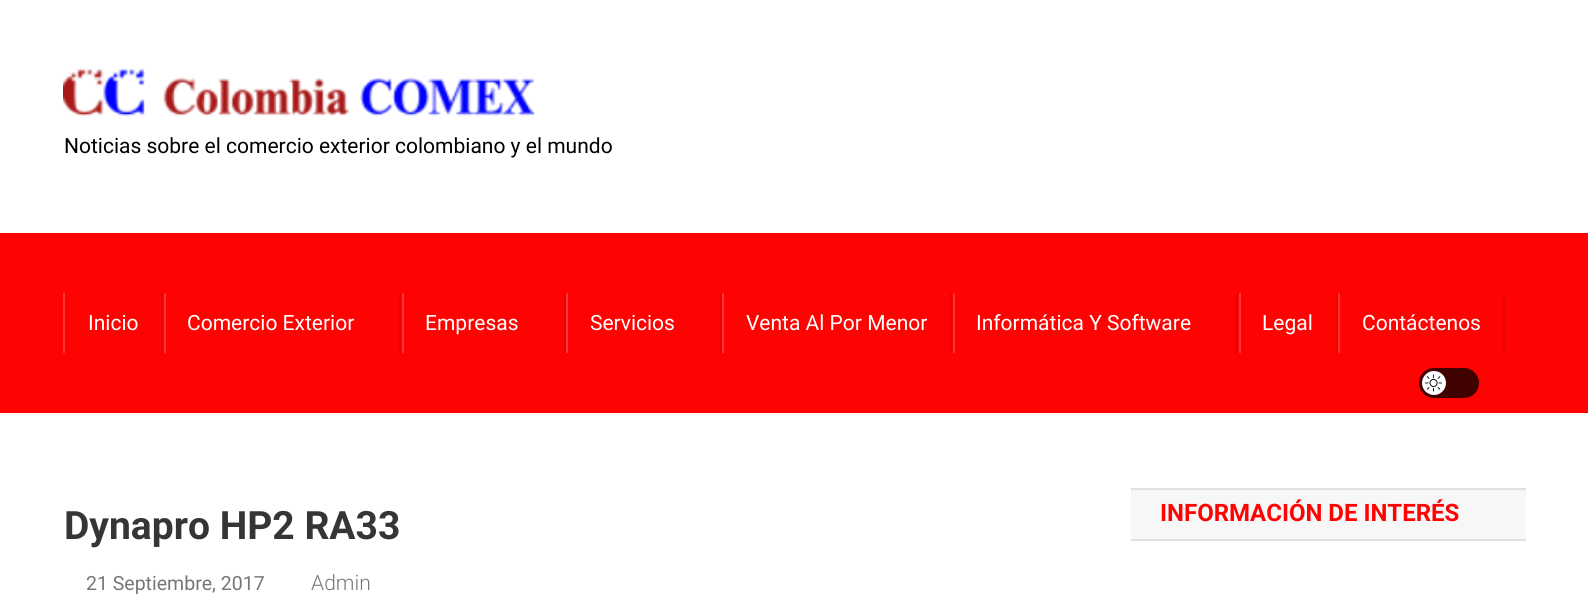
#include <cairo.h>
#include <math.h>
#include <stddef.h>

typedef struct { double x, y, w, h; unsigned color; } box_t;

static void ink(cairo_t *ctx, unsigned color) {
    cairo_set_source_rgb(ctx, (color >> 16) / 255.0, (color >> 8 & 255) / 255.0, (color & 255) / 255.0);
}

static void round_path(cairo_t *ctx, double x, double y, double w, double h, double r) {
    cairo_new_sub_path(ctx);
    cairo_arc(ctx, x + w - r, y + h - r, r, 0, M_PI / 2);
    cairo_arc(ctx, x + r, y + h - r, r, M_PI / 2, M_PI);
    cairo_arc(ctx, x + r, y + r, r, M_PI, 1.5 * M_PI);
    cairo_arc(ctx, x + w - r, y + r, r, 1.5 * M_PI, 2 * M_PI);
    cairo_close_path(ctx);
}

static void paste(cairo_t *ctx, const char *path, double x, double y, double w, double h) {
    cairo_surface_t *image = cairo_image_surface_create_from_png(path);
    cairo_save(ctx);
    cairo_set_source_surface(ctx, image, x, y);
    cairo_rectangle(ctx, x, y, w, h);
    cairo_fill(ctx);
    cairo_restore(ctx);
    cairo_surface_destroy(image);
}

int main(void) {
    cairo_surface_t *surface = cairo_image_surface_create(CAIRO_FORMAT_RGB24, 1588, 606);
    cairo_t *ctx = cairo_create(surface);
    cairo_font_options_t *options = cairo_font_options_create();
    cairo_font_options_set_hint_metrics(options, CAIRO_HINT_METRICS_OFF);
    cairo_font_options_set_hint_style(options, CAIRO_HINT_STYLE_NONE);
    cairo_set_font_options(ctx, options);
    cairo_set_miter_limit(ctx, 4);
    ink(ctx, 0xFFFFFF);
    cairo_paint(ctx);
    paste(ctx, "media/1.png", 63, 68, 471, 49);
    cairo_select_font_face(ctx, "Roboto", CAIRO_FONT_SLANT_NORMAL, CAIRO_FONT_WEIGHT_NORMAL);
    cairo_set_font_size(ctx, 21);
    ink(ctx, 0x000000);
    cairo_move_to(ctx, 64, 153);
    cairo_show_text(ctx, "Noticias sobre el comercio exterior colombiano y el mundo");
    {
        static const box_t items[] = {
            {0, 233, 1588, 180, 0xFF0202},
            {1339, 293, 1, 60, 0xFF3535},
            {161, 293, 2, 60, 0xEB0202},
            {63, 293, 2, 60, 0xFF3535},
        };
        for (size_t i = 0; i < sizeof items / sizeof *items; i++) {
            ink(ctx, items[i].color);
            cairo_rectangle(ctx, items[i].x, items[i].y, items[i].w, items[i].h);
            cairo_fill(ctx);
        }
    }
    ink(ctx, 0xFFFFFF);
    cairo_move_to(ctx, 88, 330);
    cairo_show_text(ctx, "Inicio");
    ink(ctx, 0xEB0202);
    cairo_rectangle(ctx, 399, 293, 2, 60);
    cairo_fill(ctx);
    ink(ctx, 0xFF3535);
    cairo_rectangle(ctx, 164, 293, 2, 60);
    cairo_fill(ctx);
    ink(ctx, 0xFFFFFF);
    cairo_move_to(ctx, 187, 330);
    cairo_show_text(ctx, "Comercio Exterior");
    ink(ctx, 0xEB0202);
    cairo_rectangle(ctx, 564, 293, 2, 60);
    cairo_fill(ctx);
    ink(ctx, 0xFF3535);
    cairo_rectangle(ctx, 402, 293, 2, 60);
    cairo_fill(ctx);
    ink(ctx, 0xFFFFFF);
    cairo_move_to(ctx, 425, 330);
    cairo_show_text(ctx, "Empresas");
    ink(ctx, 0xEB0202);
    cairo_rectangle(ctx, 720, 293, 2, 60);
    cairo_fill(ctx);
    ink(ctx, 0xFF3535);
    cairo_rectangle(ctx, 566, 293, 2, 60);
    cairo_fill(ctx);
    ink(ctx, 0xFFFFFF);
    cairo_move_to(ctx, 590, 330);
    cairo_show_text(ctx, "Servicios");
    ink(ctx, 0xEB0202);
    cairo_rectangle(ctx, 950, 293, 2, 60);
    cairo_fill(ctx);
    ink(ctx, 0xFF3535);
    cairo_rectangle(ctx, 722, 293, 2, 60);
    cairo_fill(ctx);
    ink(ctx, 0xFFFFFF);
    cairo_move_to(ctx, 746, 330);
    cairo_show_text(ctx, "Venta Al Por Menor");
    ink(ctx, 0xEB0202);
    cairo_rectangle(ctx, 1236, 293, 2, 60);
    cairo_fill(ctx);
    ink(ctx, 0xFF3535);
    cairo_rectangle(ctx, 953, 293, 2, 60);
    cairo_fill(ctx);
    ink(ctx, 0xFFFFFF);
    cairo_move_to(ctx, 976, 330);
    cairo_show_text(ctx, "Informática Y Software");
    {
        static const box_t items[] = {
            {1337, 293, 1, 60, 0xEB0202},
            {1338, 293, 1, 60, 0xEF3535},
            {1239, 293, 2, 60, 0xFF3535},
        };
        for (size_t i = 0; i < sizeof items / sizeof *items; i++) {
            ink(ctx, items[i].color);
            cairo_rectangle(ctx, items[i].x, items[i].y, items[i].w, items[i].h);
            cairo_fill(ctx);
        }
    }
    ink(ctx, 0xFFFFFF);
    cairo_move_to(ctx, 1262, 330);
    cairo_show_text(ctx, "Legal");
    ink(ctx, 0xEB0202);
    cairo_rectangle(ctx, 1503, 293, 2, 60);
    cairo_fill(ctx);
    ink(ctx, 0xFFFFFF);
    cairo_move_to(ctx, 1362, 330);
    cairo_show_text(ctx, "Contáctenos");
    ink(ctx, 0x400101);
    round_path(ctx, 1419, 368, 60, 30, 15);
    cairo_fill(ctx);
    ink(ctx, 0xFFFFFF);
    cairo_arc(ctx, 1434, 383, 12, 0, 2 * M_PI);
    cairo_fill(ctx);
    paste(ctx, "media/2.png", 1425, 374, 17, 18);
    cairo_select_font_face(ctx, "Roboto", CAIRO_FONT_SLANT_NORMAL, CAIRO_FONT_WEIGHT_BOLD);
    cairo_set_font_size(ctx, 39);
    ink(ctx, 0x353535);
    cairo_move_to(ctx, 64, 539);
    cairo_show_text(ctx, "Dynapro HP2 RA33");
    cairo_select_font_face(ctx, "Roboto", CAIRO_FONT_SLANT_NORMAL, CAIRO_FONT_WEIGHT_NORMAL);
    cairo_set_font_size(ctx, 19.5);
    ink(ctx, 0x767676);
    cairo_move_to(ctx, 86, 590);
    cairo_show_text(ctx, "21 Septiembre, 2017");
    cairo_select_font_face(ctx, "Roboto Light", CAIRO_FONT_SLANT_NORMAL, CAIRO_FONT_WEIGHT_NORMAL);
    cairo_set_font_size(ctx, 21);
    cairo_move_to(ctx, 311, 590);
    cairo_show_text(ctx, "Admin");
    {
        static const box_t items[] = {
            {1131, 490, 395, 49, 0xF7F7F7},
            {1131, 488, 395, 2, 0xE1E1E1},
            {1131, 539, 395, 2, 0xE1E1E1},
        };
        for (size_t i = 0; i < sizeof items / sizeof *items; i++) {
            ink(ctx, items[i].color);
            cairo_rectangle(ctx, items[i].x, items[i].y, items[i].w, items[i].h);
            cairo_fill(ctx);
        }
    }
    cairo_select_font_face(ctx, "Roboto", CAIRO_FONT_SLANT_NORMAL, CAIRO_FONT_WEIGHT_BOLD);
    cairo_set_font_size(ctx, 24);
    ink(ctx, 0xFF0202);
    cairo_move_to(ctx, 1160, 521);
    cairo_show_text(ctx, "INFORMACIÓN DE INTERÉS");
    cairo_surface_write_to_png(surface, "image.png");
    cairo_font_options_destroy(options);
    cairo_destroy(ctx);
    cairo_surface_destroy(surface);
    return 0;
}
